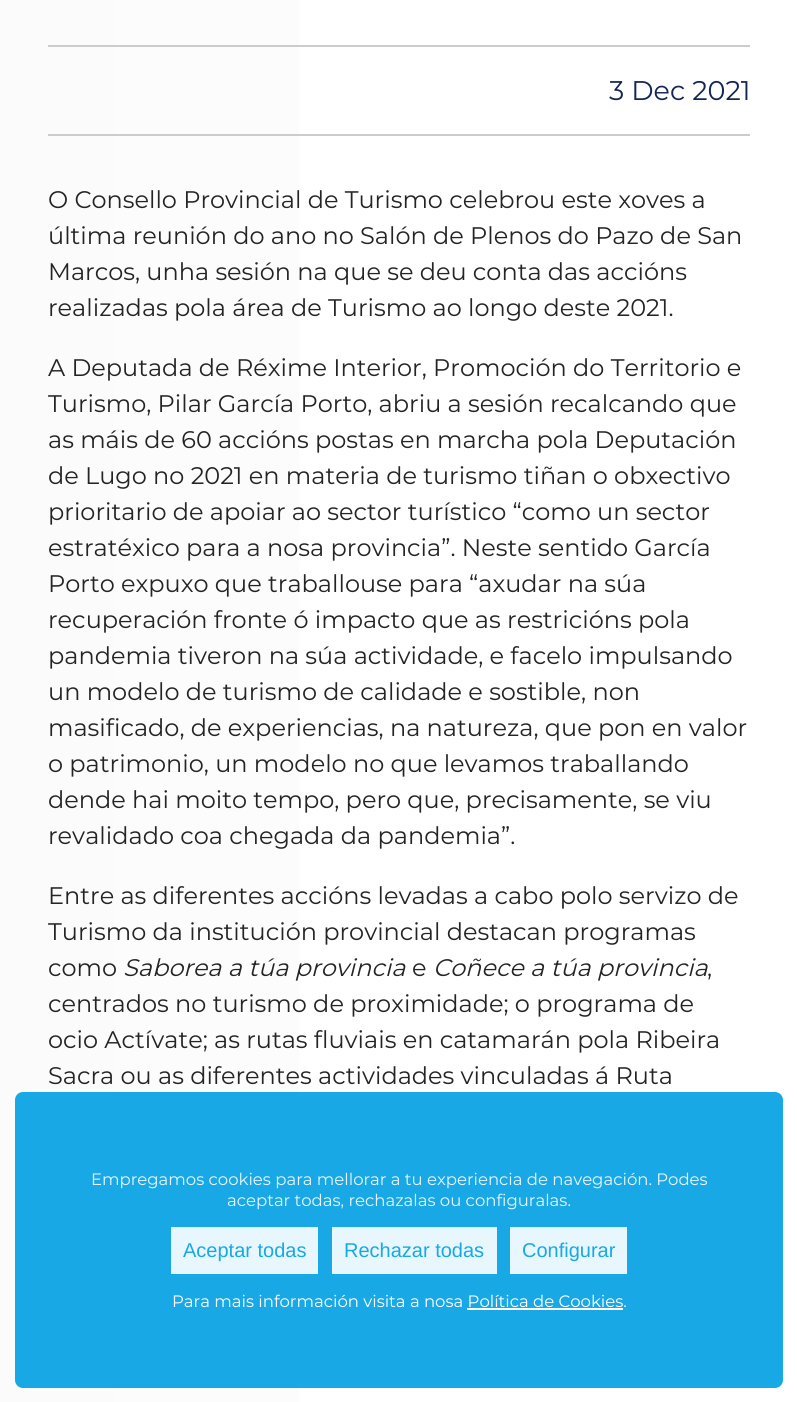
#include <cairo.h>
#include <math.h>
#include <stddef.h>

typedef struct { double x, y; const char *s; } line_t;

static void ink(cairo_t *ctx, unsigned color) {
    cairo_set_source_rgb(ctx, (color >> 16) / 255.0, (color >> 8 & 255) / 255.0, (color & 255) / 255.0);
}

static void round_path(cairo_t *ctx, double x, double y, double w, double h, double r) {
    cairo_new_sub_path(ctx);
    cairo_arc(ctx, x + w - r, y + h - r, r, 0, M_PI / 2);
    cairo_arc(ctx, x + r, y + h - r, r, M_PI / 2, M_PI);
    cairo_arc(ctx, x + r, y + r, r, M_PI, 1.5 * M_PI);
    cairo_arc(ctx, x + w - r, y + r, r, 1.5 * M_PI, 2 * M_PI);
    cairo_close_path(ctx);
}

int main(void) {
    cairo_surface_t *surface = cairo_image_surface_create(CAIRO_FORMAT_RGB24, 797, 1402);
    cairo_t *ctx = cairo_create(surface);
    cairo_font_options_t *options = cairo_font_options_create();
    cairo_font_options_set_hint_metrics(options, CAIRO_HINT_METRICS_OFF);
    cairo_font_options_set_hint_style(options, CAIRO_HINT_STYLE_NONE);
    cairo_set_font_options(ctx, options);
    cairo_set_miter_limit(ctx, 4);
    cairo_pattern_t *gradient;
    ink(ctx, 0xFFFFFF);
    cairo_paint(ctx);
    gradient = cairo_pattern_create_linear(0, 1096, 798, 1096);
    cairo_pattern_add_color_stop_rgba(gradient, 0, 0.984, 0.984, 0.984, 1);
    cairo_pattern_add_color_stop_rgba(gradient, 0.5, 0.992, 0.992, 0.992, 1);
    cairo_pattern_add_color_stop_rgba(gradient, 1, 1, 1, 1, 1);
    cairo_set_source(ctx, gradient);
    cairo_pattern_destroy(gradient);
    cairo_rectangle(ctx, 0, 0, 299, 1402);
    cairo_fill(ctx);
    ink(ctx, 0xCCCCCC);
    cairo_rectangle(ctx, 48, 45, 702, 2);
    cairo_fill(ctx);
    cairo_rectangle(ctx, 48, 134, 702, 2);
    cairo_fill(ctx);
    cairo_select_font_face(ctx, "Montserrat Thin", CAIRO_FONT_SLANT_NORMAL, CAIRO_FONT_WEIGHT_NORMAL);
    cairo_set_font_size(ctx, 27);
    ink(ctx, 0x132653);
    cairo_move_to(ctx, 609, 100);
    cairo_show_text(ctx, "3 Dec 2021");
    cairo_set_font_size(ctx, 24);
    ink(ctx, 0x242424);
    {
        static const line_t items[] = {
            {48, 208, "O Consello Provincial de Turismo celebrou este xoves a"},
            {48, 244, "última reunión do ano no Salón de Plenos do Pazo de San"},
            {48, 280, "Marcos, unha sesión na que se deu conta das accións"},
            {48, 316, "realizadas pola área de Turismo ao longo deste 2021."},
            {48, 376, "A Deputada de Réxime Interior, Promoción do Territorio e"},
            {48, 412, "Turismo, Pilar García Porto, abriu a sesión recalcando que"},
            {48, 448, "as máis de 60 accións postas en marcha pola Deputación"},
            {48, 484, "de Lugo no 2021 en materia de turismo tiñan o obxectivo"},
            {48, 520, "prioritario de apoiar ao sector turístico “como un sector"},
            {48, 556, "estratéxico para a nosa provincia”. Neste sentido García"},
            {48, 592, "Porto expuxo que traballouse para “axudar na súa"},
            {48, 628, "recuperación fronte ó impacto que as restricións pola"},
            {48, 664, "pandemia tiveron na súa actividade, e facelo impulsando"},
            {48, 700, "un modelo de turismo de calidade e sostible, non"},
            {48, 736, "masificado, de experiencias, na natureza, que pon en valor"},
            {48, 772, "o patrimonio, un modelo no que levamos traballando"},
            {48, 808, "dende hai moito tempo, pero que, precisamente, se viu"},
            {48, 844, "revalidado coa chegada da pandemia”."},
            {48, 904, "Entre as diferentes accións levadas a cabo polo servizo de"},
            {48, 940, "Turismo da institución provincial destacan programas"},
            {48, 976, "como"},
        };
        for (size_t i = 0; i < sizeof items / sizeof *items; i++) {
            cairo_move_to(ctx, items[i].x, items[i].y);
            cairo_show_text(ctx, items[i].s);
        }
    }
    cairo_select_font_face(ctx, "Montserrat Thin", CAIRO_FONT_SLANT_ITALIC, CAIRO_FONT_WEIGHT_NORMAL);
    cairo_move_to(ctx, 123, 976);
    cairo_show_text(ctx, "Saborea a túa provincia");
    cairo_select_font_face(ctx, "Montserrat Thin", CAIRO_FONT_SLANT_NORMAL, CAIRO_FONT_WEIGHT_NORMAL);
    cairo_move_to(ctx, 412, 976);
    cairo_show_text(ctx, "e");
    cairo_select_font_face(ctx, "Montserrat Thin", CAIRO_FONT_SLANT_ITALIC, CAIRO_FONT_WEIGHT_NORMAL);
    cairo_move_to(ctx, 433, 976);
    cairo_show_text(ctx, "Coñece a túa provincia");
    cairo_select_font_face(ctx, "Montserrat Thin", CAIRO_FONT_SLANT_NORMAL, CAIRO_FONT_WEIGHT_NORMAL);
    {
        static const line_t items[] = {
            {707, 976, ","},
            {48, 1012, "centrados no turismo de proximidade; o programa de"},
            {48, 1048, "ocio Actívate; as rutas fluviais en catamarán pola Ribeira"},
            {48, 1084, "Sacra ou as diferentes actividades vinculadas á Ruta"},
        };
        for (size_t i = 0; i < sizeof items / sizeof *items; i++) {
            cairo_move_to(ctx, items[i].x, items[i].y);
            cairo_show_text(ctx, items[i].s);
        }
    }
    cairo_set_source_rgba(ctx, 0, 0.624, 0.89, 0.9);
    round_path(ctx, 15, 1092, 768, 296, 8);
    cairo_fill(ctx);
    cairo_set_font_size(ctx, 16.5);
    ink(ctx, 0xE8F6FC);
    cairo_move_to(ctx, 91, 1185);
    cairo_show_text(ctx, "Empregamos cookies para mellorar a tu experiencia de navegación. Podes");
    cairo_move_to(ctx, 227, 1206);
    cairo_show_text(ctx, "aceptar todas, rechazalas ou configuralas.");
    cairo_set_source_rgba(ctx, 1, 1, 1, 0.9);
    cairo_rectangle(ctx, 171, 1227, 147, 47);
    cairo_fill(ctx);
    cairo_select_font_face(ctx, "Liberation Sans", CAIRO_FONT_SLANT_NORMAL, CAIRO_FONT_WEIGHT_NORMAL);
    cairo_set_font_size(ctx, 20);
    ink(ctx, 0x17A8E6);
    cairo_move_to(ctx, 183, 1257);
    cairo_show_text(ctx, "Aceptar todas");
    cairo_set_source_rgba(ctx, 1, 1, 1, 0.9);
    cairo_rectangle(ctx, 332, 1227, 165, 47);
    cairo_fill(ctx);
    ink(ctx, 0x17A8E6);
    cairo_move_to(ctx, 344, 1257);
    cairo_show_text(ctx, "Rechazar todas");
    cairo_set_source_rgba(ctx, 1, 1, 1, 0.9);
    cairo_rectangle(ctx, 510, 1227, 117, 47);
    cairo_fill(ctx);
    ink(ctx, 0x17A8E6);
    cairo_move_to(ctx, 522, 1257);
    cairo_show_text(ctx, "Configurar");
    cairo_select_font_face(ctx, "Montserrat Thin", CAIRO_FONT_SLANT_NORMAL, CAIRO_FONT_WEIGHT_NORMAL);
    cairo_set_font_size(ctx, 16.5);
    ink(ctx, 0xFFFFFF);
    cairo_move_to(ctx, 172, 1307);
    cairo_show_text(ctx, "Para mais información visita a nosa Política de Cookies.");
    cairo_rectangle(ctx, 467, 1308, 156, 2);
    cairo_fill(ctx);
    cairo_surface_write_to_png(surface, "image.png");
    cairo_font_options_destroy(options);
    cairo_destroy(ctx);
    cairo_surface_destroy(surface);
    return 0;
}
